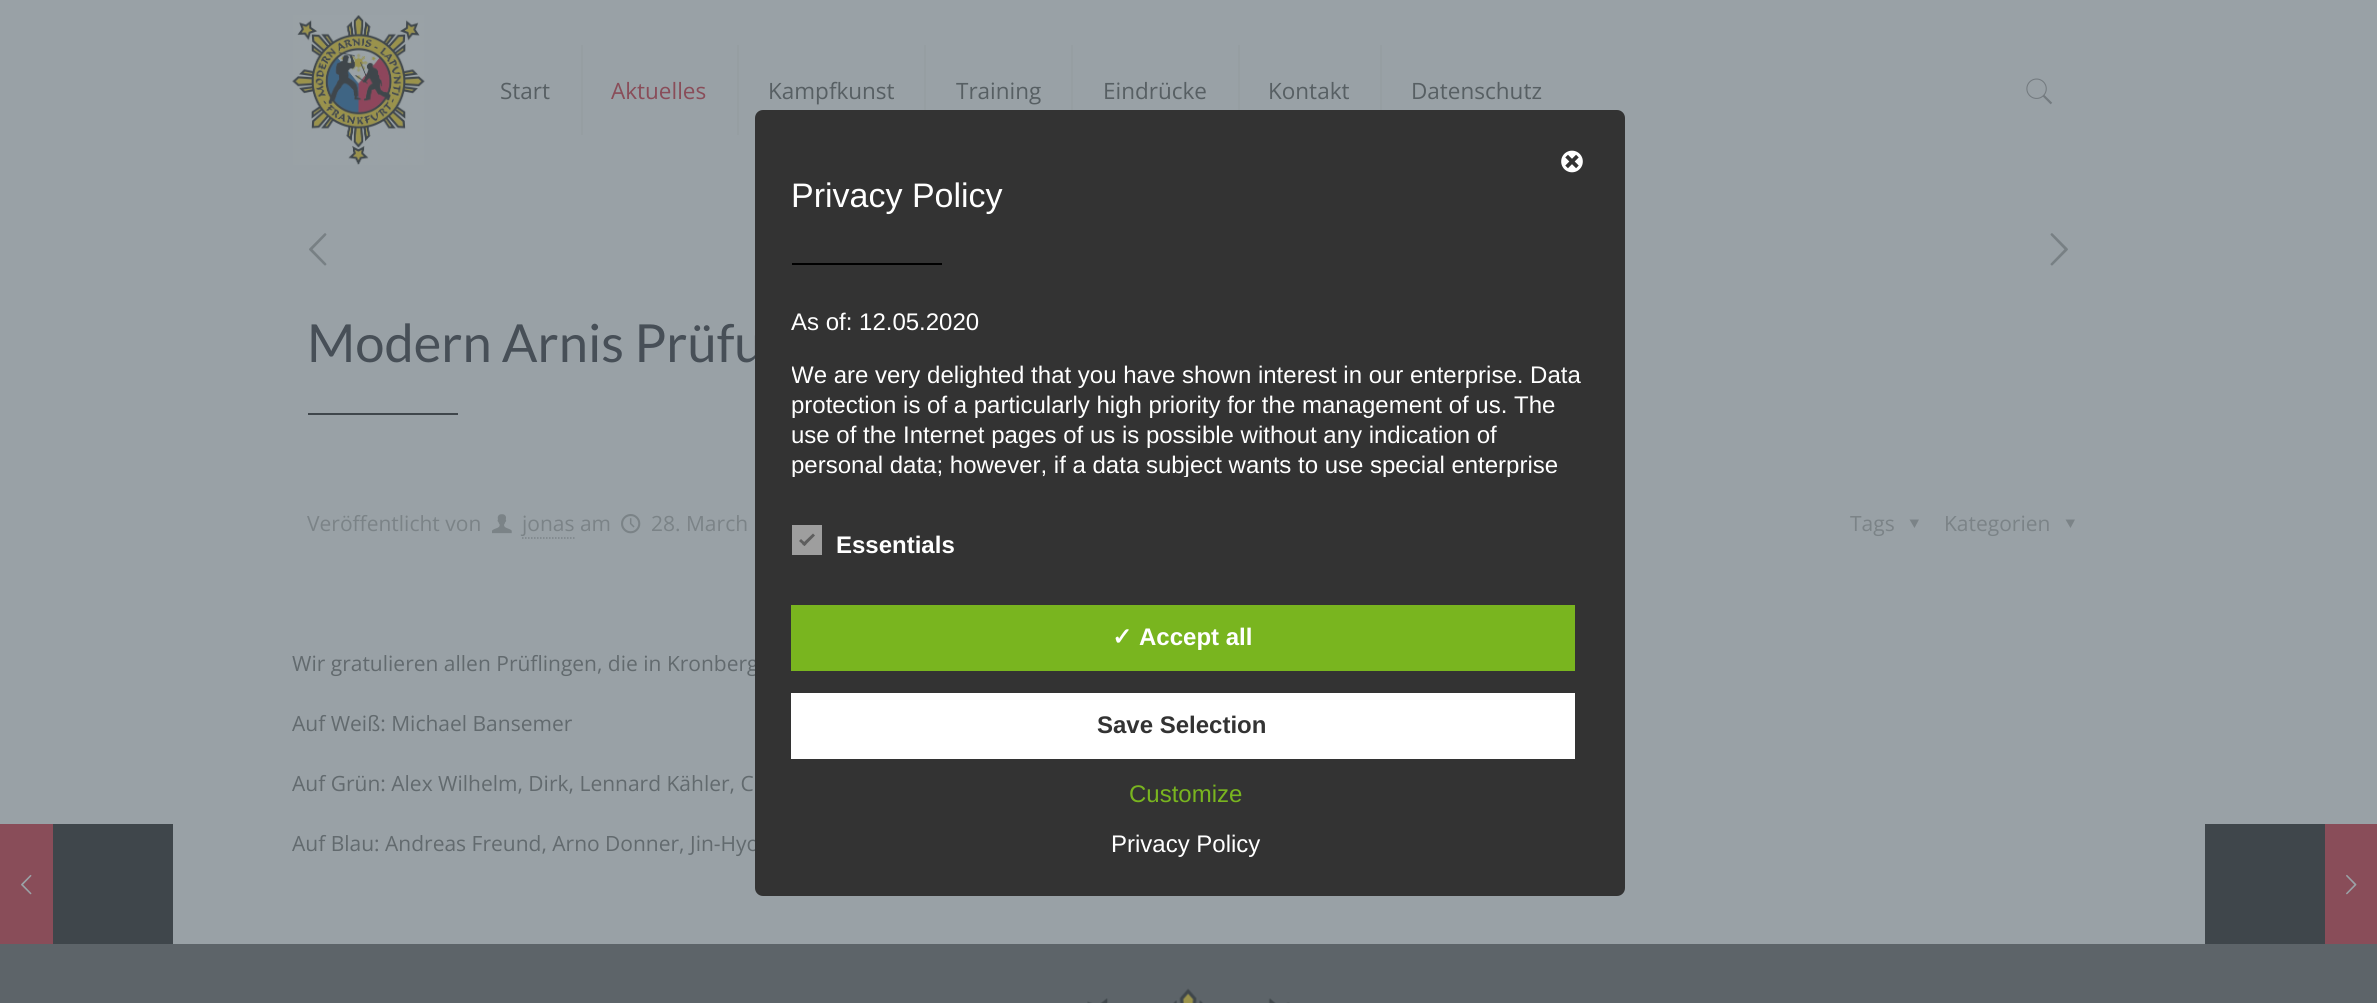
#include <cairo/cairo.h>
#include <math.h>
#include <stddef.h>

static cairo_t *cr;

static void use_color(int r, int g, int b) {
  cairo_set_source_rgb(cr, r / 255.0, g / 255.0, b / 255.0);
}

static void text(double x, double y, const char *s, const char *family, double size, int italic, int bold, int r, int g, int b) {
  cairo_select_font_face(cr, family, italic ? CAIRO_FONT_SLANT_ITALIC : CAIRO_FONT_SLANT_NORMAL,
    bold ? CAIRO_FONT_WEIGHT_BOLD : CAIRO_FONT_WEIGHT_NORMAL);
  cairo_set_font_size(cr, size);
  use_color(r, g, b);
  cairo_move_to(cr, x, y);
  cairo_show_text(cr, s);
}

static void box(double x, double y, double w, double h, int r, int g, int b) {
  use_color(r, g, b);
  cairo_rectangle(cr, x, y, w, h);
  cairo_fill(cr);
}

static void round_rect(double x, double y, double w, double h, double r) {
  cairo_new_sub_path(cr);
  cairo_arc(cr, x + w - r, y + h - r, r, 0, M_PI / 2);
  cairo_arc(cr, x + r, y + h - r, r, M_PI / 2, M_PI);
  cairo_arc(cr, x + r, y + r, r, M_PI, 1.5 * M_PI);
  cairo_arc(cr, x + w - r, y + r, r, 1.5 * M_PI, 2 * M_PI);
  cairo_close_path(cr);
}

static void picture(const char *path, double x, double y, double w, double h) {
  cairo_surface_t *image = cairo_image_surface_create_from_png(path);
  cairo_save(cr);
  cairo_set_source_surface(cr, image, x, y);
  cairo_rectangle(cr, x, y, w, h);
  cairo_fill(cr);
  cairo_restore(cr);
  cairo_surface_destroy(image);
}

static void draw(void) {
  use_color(153, 161, 166);
  cairo_paint(cr);
  picture("img_01.png", 292, 15, 133, 150);
  box(581, 45, 2, 90, 150, 158, 162);
  box(737, 45, 2, 90, 150, 158, 162);
  box(924, 45, 2, 65, 150, 158, 162);
  box(1071, 45, 2, 65, 150, 158, 162);
  box(1238, 45, 2, 65, 150, 158, 162);
  box(1380, 45, 2, 65, 150, 158, 162);
  picture("img_02.png", 2026, 78, 27, 27);
  picture("img_03.png", 309, 233, 18, 33);
  picture("img_04.png", 2050, 233, 18, 33);
  box(308, 413, 150, 2, 63, 70, 75);
  picture("img_05.png", 492, 514, 20, 20);
  cairo_new_path(cr);
  cairo_move_to(cr, 522, 538);
  cairo_line_to(cr, 574.5, 538);
  use_color(123, 131, 135);
  cairo_set_line_width(cr, 1.5);
  cairo_set_dash(cr, (double[]){1.5, 1.5}, 2, 0);
  cairo_stroke(cr);
  picture("img_06.png", 621, 514, 20, 20);
  cairo_new_path(cr);
  cairo_move_to(cr, 1919, 519.5);
  cairo_line_to(cr, 1914.5, 528);
  cairo_line_to(cr, 1909.5, 519.5);
  cairo_close_path(cr);
  cairo_fill(cr);
  cairo_new_path(cr);
  cairo_move_to(cr, 2075, 519.5);
  cairo_line_to(cr, 2070.5, 528);
  cairo_line_to(cr, 2065.5, 519.5);
  cairo_close_path(cr);
  cairo_fill(cr);
  box(0, 944, 2377, 59, 93, 100, 105);
  picture("img_07.png", 1087, 988, 203, 15);
  box(0, 824, 53, 120, 137, 77, 89);
  picture("img_09.png", 21, 874, 11, 21);
  box(53, 824, 120, 120, 63, 70, 75);
  box(2205, 824, 120, 120, 63, 70, 75);
  box(2325, 824, 52, 120, 137, 77, 89);
  picture("img_10.png", 2346, 874, 11, 21);
  text(500, 99, "Start", "Open Sans", 22.5, 0, 0, 87, 95, 99);
  text(611, 99, "Aktuelles", "Open Sans", 22.5, 0, 0, 137, 77, 89);
  text(768, 99, "Kampfkunst", "Open Sans", 22.5, 0, 0, 87, 95, 99);
  text(956, 99, "Training", "Open Sans", 22.5, 0, 0, 87, 95, 99);
  text(1103, 99, "Eindrücke", "Open Sans", 22.5, 0, 0, 87, 95, 99);
  text(1268, 99, "Kontakt", "Open Sans", 22.5, 0, 0, 87, 95, 99);
  text(1411, 99, "Datenschutz", "Open Sans", 22.5, 0, 0, 87, 95, 99);
  text(307, 362, "Modern Arnis Prüfu", "Lato", 52.5, 0, 0, 71, 79, 87);
  text(307, 531, "Veröffentlicht von", "Open Sans", 21, 0, 0, 123, 131, 135);
  text(522, 531, "jonas am", "Open Sans", 21, 0, 0, 123, 131, 135);
  text(651, 531, "28. March", "Open Sans", 21, 0, 0, 123, 131, 135);
  text(1850, 531, "Tags", "Open Sans", 21, 0, 0, 123, 131, 135);
  text(1944, 531, "Kategorien", "Open Sans", 21, 0, 0, 123, 131, 135);
  text(292, 671, "Wir gratulieren allen Prüflingen, die in Kronberg", "Open Sans", 21, 0, 0, 98, 106, 110);
  text(292, 731, "Auf Weiß: Michael Bansemer", "Open Sans", 21, 0, 0, 98, 106, 110);
  text(292, 791, "Auf Grün: Alex Wilhelm, Dirk, Lennard Kähler, C", "Open Sans", 21, 0, 0, 98, 106, 110);
  text(292, 851, "Auf Blau: Andreas Freund, Arno Donner, Jin-Hyo", "Open Sans", 21, 0, 0, 98, 106, 110);
  use_color(51, 51, 51);
  round_rect(755, 110, 870, 786, 8);
  cairo_fill(cr);
  picture("img_08.png", 1561, 150, 22, 23);
  text(791, 207, "Privacy Policy", "Liberation Sans", 34, 0, 0, 255, 255, 255);
  box(792, 263, 150, 2, 0, 0, 0);
  text(791, 330, "As of: 12.05.2020", "Liberation Sans", 24, 0, 0, 255, 255, 255);
  cairo_save(cr);
  cairo_rectangle(cr, 792, 177, 810, 300);
  cairo_clip(cr);
  text(791, 383, "We are very delighted that you have shown interest in our enterprise. Data", "Liberation Sans", 24, 0, 0, 255, 255, 255);
  cairo_restore(cr);
  text(791, 413, "protection is of a particularly high priority for the management of us. The", "Liberation Sans", 24, 0, 0, 255, 255, 255);
  text(791, 443, "use of the Internet pages of us is possible without any indication of", "Liberation Sans", 24, 0, 0, 255, 255, 255);
  cairo_save(cr);
  cairo_rectangle(cr, 792, 177, 810, 300);
  cairo_clip(cr);
  text(791, 473, "personal data; however, if a data subject wants to use special enterprise", "Liberation Sans", 24, 0, 0, 255, 255, 255);
  cairo_restore(cr);
  box(792, 525, 30, 30, 158, 158, 158);
  use_color(94, 94, 94);
  cairo_new_path(cr);
  cairo_move_to(cr, 813, 533.5);
  cairo_line_to(cr, 815, 535.5);
  cairo_line_to(cr, 804.5, 546);
  cairo_line_to(cr, 802, 544);
  cairo_close_path(cr);
  cairo_fill(cr);
  cairo_new_path(cr);
  cairo_move_to(cr, 801, 539);
  cairo_line_to(cr, 806.5, 544);
  cairo_line_to(cr, 804.5, 546);
  cairo_line_to(cr, 799, 541);
  cairo_close_path(cr);
  cairo_fill(cr);
  text(836, 553, "Essentials", "Liberation Sans", 24, 0, 1, 255, 255, 255);
  box(791, 605, 784, 66, 121, 181, 31);
  text(1112, 645, "✓", "DejaVu Sans", 24, 0, 1, 255, 255, 255);
  text(1139, 645, "Accept all", "Liberation Sans", 24, 0, 1, 255, 255, 255);
  box(791, 693, 784, 66, 255, 255, 255);
  text(1097, 733, "Save Selection", "Liberation Sans", 24, 0, 1, 51, 51, 51);
  text(1129, 802, "Customize", "Liberation Sans", 24, 0, 0, 121, 181, 31);
  text(1111, 852, "Privacy Policy", "Liberation Sans", 24, 0, 0, 255, 255, 255);
}

int main(void) {
  cairo_surface_t *surface = cairo_image_surface_create(CAIRO_FORMAT_RGB24, 2377, 1003);
  cr = cairo_create(surface);
  cairo_font_options_t *options = cairo_font_options_create();
  cairo_font_options_set_hint_metrics(options, CAIRO_HINT_METRICS_OFF);
  cairo_font_options_set_hint_style(options, CAIRO_HINT_STYLE_NONE);
  cairo_set_font_options(cr, options);
  cairo_set_miter_limit(cr, 4);
  draw();
  cairo_surface_write_to_png(surface, "out.png");
  cairo_font_options_destroy(options);
  cairo_destroy(cr);
  cairo_surface_destroy(surface);
  return 0;
}
